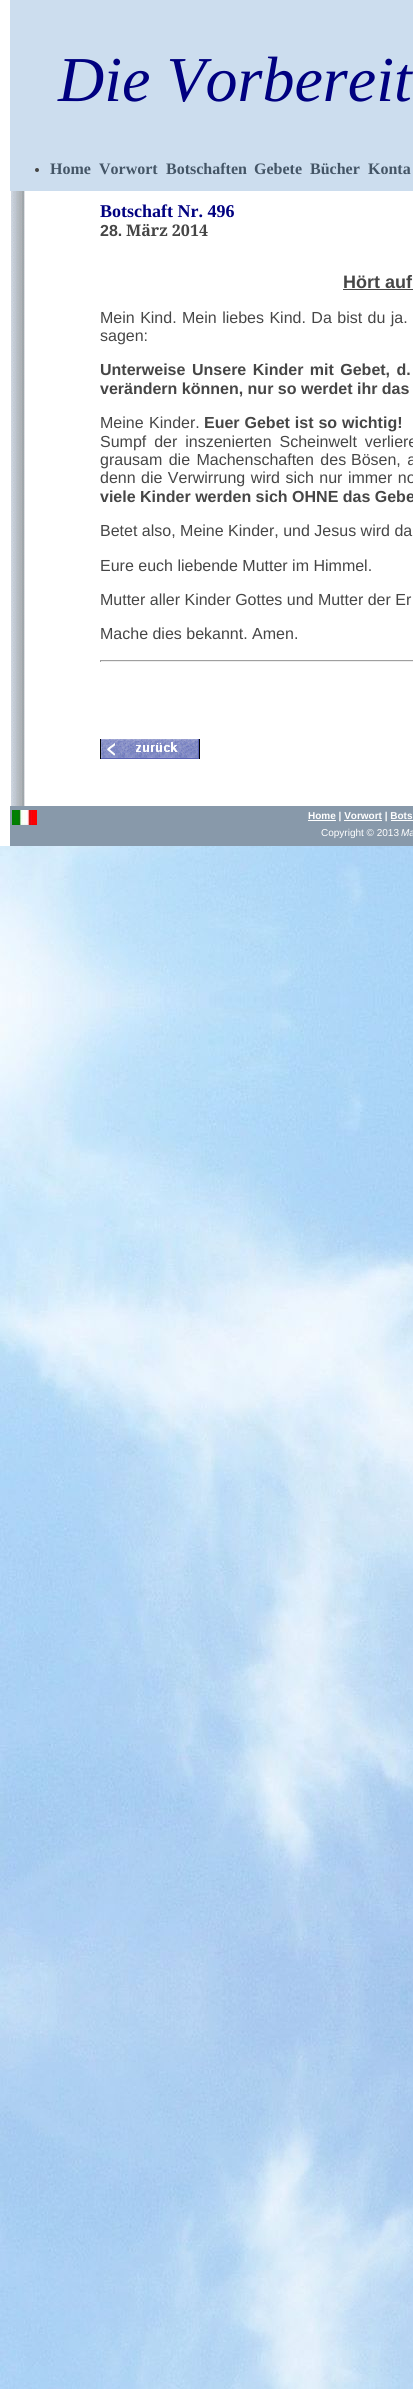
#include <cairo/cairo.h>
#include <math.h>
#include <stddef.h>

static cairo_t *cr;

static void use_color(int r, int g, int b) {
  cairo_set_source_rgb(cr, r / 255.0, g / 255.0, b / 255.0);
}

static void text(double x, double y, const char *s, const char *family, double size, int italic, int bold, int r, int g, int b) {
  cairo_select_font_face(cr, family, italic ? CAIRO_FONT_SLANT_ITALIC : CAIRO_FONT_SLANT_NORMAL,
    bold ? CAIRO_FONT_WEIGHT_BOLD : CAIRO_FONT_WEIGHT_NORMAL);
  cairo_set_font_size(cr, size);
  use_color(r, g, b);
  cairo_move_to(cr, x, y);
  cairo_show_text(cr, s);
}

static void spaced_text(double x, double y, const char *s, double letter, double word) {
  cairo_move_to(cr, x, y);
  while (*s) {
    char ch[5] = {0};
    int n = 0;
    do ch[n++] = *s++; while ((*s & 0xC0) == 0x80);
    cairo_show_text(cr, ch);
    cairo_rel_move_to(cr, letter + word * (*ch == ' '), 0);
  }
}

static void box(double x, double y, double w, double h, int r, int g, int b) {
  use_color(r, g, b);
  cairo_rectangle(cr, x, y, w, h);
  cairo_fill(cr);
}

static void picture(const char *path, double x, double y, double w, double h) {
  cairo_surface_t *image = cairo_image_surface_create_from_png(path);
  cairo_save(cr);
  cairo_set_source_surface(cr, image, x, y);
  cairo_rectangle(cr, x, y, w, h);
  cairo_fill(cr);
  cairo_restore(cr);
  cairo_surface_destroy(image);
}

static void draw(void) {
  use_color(255, 255, 255);
  cairo_paint(cr);
  picture("img_01.png", 0, 846, 413, 1543);
  picture("img_02.png", 11, 191, 14, 615);
  box(10, 0, 403, 191, 204, 221, 238);
  use_color(70, 70, 70);
  cairo_arc(cr, 37, 170, 2, 0, 2 * M_PI);
  cairo_fill(cr);
  box(343, 289, 70, 1, 70, 70, 70);
  box(100, 660, 313, 1, 159, 159, 159);
  box(100, 661, 313, 1, 238, 238, 238);
  box(100, 660, 1, 2, 159, 159, 159);
  picture("img_03.png", 100, 739, 100, 20);
  box(10, 806, 403, 40, 136, 153, 170);
  picture("img_04.png", 12, 810, 25, 15);
  box(308, 820, 28, 1, 255, 255, 255);
  box(344, 820, 38, 1, 255, 255, 255);
  box(391, 820, 22, 1, 255, 255, 255);
  text(58, 101, "Die Vorbereit", "Liberation Serif", 64, 1, 0, 0, 0, 128);
  text(50, 174, "Home", "Liberation Serif", 16, 0, 1, 68, 85, 102);
  text(99, 174, "Vorwort", "Liberation Serif", 16, 0, 1, 68, 85, 102);
  text(166, 174, "Botschaften", "Liberation Serif", 16, 0, 1, 68, 85, 102);
  text(254, 174, "Gebete", "Liberation Serif", 16, 0, 1, 68, 85, 102);
  text(310, 174, "Bücher", "Liberation Serif", 16, 0, 1, 68, 85, 102);
  text(368, 174, "Konta", "Liberation Serif", 16, 0, 1, 68, 85, 102);
  text(100, 217, "Botschaft Nr. 496", "Liberation Serif", 18, 0, 1, 0, 0, 128);
  text(100, 236, "28.", "Liberation Sans", 16, 0, 1, 70, 70, 70);
  text(126, 236, "März 2014", "Noto Serif", 16, 0, 1, 70, 70, 70);
  text(343, 288, "Hört auf", "Liberation Sans", 18, 0, 1, 70, 70, 70);
  cairo_select_font_face(cr, "Liberation Sans", CAIRO_FONT_SLANT_NORMAL, CAIRO_FONT_WEIGHT_NORMAL);
  cairo_set_font_size(cr, 16);
  spaced_text(100, 323, "Mein Kind. Mein liebes Kind. Da bist du ja.", 0, 1);
  text(100, 341, "sagen:", "Liberation Sans", 16, 0, 0, 70, 70, 70);
  text(100, 375, "Unterweise", "Liberation Sans", 16, 0, 1, 70, 70, 70);
  spaced_text(192, 375, "Unsere Kinder mit Gebet, d.", 0, 2);
  text(100, 394, "verändern können, nur so werdet ihr das", "Liberation Sans", 16, 0, 1, 70, 70, 70);
  cairo_select_font_face(cr, "Liberation Sans", CAIRO_FONT_SLANT_NORMAL, CAIRO_FONT_WEIGHT_NORMAL);
  spaced_text(100, 428, "Meine Kinder.", 0, 1);
  cairo_select_font_face(cr, "Liberation Sans", CAIRO_FONT_SLANT_NORMAL, CAIRO_FONT_WEIGHT_BOLD);
  spaced_text(204, 428, "Euer Gebet ist so wichtig!", 0, 0.5);
  cairo_select_font_face(cr, "Liberation Sans", CAIRO_FONT_SLANT_NORMAL, CAIRO_FONT_WEIGHT_NORMAL);
  spaced_text(100, 447, "Sumpf der inszenierten Scheinwelt verliere", 0, 3.5);
  spaced_text(100, 465, "grausam die Machenschaften des", 0, 2);
  spaced_text(351, 465, "Bösen, a", 0, 2);
  spaced_text(100, 483, "denn die Verwirrung wird sich nur immer no", 0, 1);
  text(100, 502, "viele Kinder werden sich OHNE das Gebe", "Liberation Sans", 16, 0, 1, 70, 70, 70);
  text(100, 536, "Betet also, Meine Kinder, und Jesus wird da", "Liberation Sans", 16, 0, 0, 70, 70, 70);
  text(100, 571, "Eure euch liebende Mutter im Himmel.", "Liberation Sans", 16, 0, 0, 70, 70, 70);
  text(100, 605, "Mutter aller Kinder Gottes und Mutter der Er", "Liberation Sans", 16, 0, 0, 70, 70, 70);
  text(100, 639, "Mache dies bekannt. Amen.", "Liberation Sans", 16, 0, 0, 70, 70, 70);
  text(308, 819, "Home | Vorwort | Bots", "Liberation Sans", 10, 0, 1, 255, 255, 255);
  text(321, 836, "Copyright © 2013", "Liberation Sans", 10, 0, 0, 255, 255, 255);
  text(401, 836, "Ma", "Liberation Sans", 10, 1, 0, 255, 255, 255);
}

int main(void) {
  cairo_surface_t *surface = cairo_image_surface_create(CAIRO_FORMAT_RGB24, 413, 2389);
  cr = cairo_create(surface);
  cairo_font_options_t *options = cairo_font_options_create();
  cairo_font_options_set_hint_metrics(options, CAIRO_HINT_METRICS_OFF);
  cairo_font_options_set_hint_style(options, CAIRO_HINT_STYLE_NONE);
  cairo_set_font_options(cr, options);
  cairo_set_miter_limit(cr, 4);
  draw();
  cairo_surface_write_to_png(surface, "out.png");
  cairo_font_options_destroy(options);
  cairo_destroy(cr);
  cairo_surface_destroy(surface);
  return 0;
}
